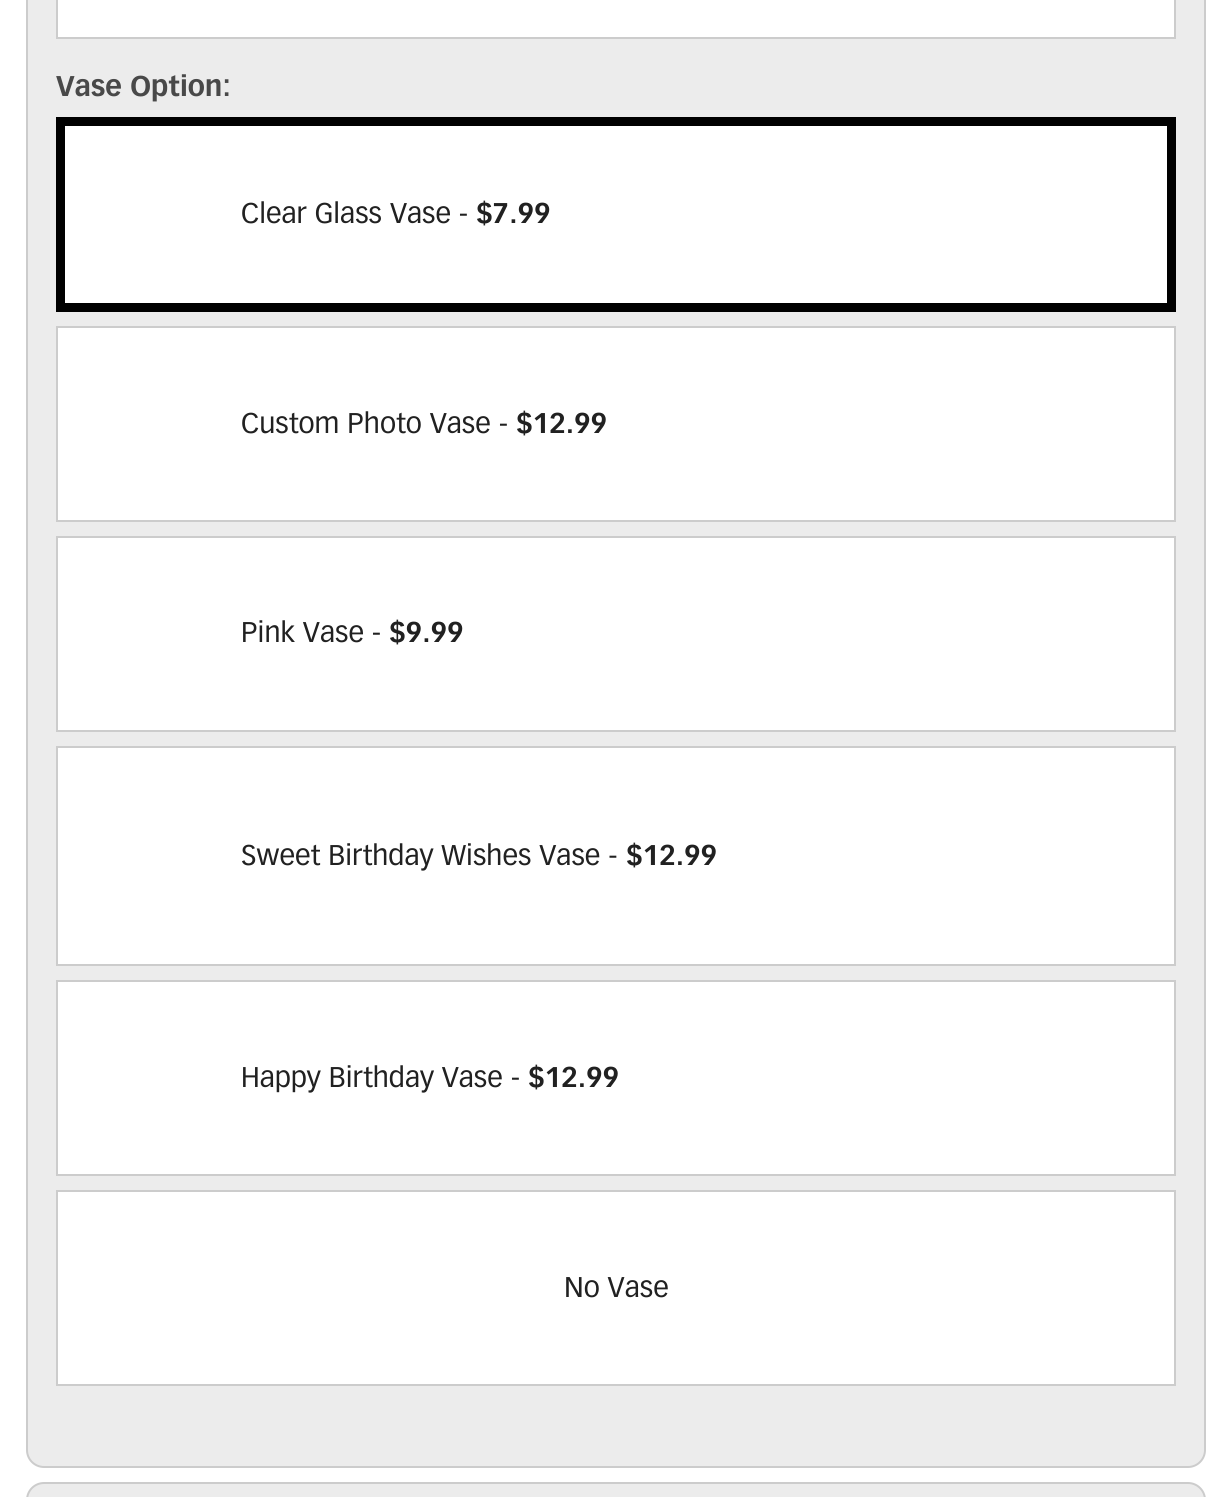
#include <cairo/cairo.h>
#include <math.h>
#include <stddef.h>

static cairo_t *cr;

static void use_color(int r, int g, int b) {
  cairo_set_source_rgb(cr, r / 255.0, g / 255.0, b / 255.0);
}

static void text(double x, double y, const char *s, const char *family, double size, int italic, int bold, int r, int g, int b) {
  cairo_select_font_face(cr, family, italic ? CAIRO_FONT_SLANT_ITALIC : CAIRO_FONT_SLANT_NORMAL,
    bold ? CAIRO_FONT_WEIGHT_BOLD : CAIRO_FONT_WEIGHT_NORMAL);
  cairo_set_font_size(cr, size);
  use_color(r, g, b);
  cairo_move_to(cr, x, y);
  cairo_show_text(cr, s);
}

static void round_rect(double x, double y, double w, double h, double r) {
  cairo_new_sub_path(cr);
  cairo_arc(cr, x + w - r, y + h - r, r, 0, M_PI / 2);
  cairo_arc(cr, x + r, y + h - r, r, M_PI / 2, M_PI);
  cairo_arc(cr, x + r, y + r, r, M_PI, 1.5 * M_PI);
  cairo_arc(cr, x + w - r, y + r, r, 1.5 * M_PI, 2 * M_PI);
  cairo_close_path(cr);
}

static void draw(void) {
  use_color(255, 255, 255);
  cairo_paint(cr);
  use_color(236, 236, 236);
  round_rect(27, -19, 1178, 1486, 17);
  cairo_fill_preserve(cr);
  use_color(204, 204, 204);
  cairo_stroke(cr);
  use_color(255, 255, 255);
  cairo_rectangle(cr, 57, -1, 1118, 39);
  cairo_fill_preserve(cr);
  use_color(204, 204, 204);
  cairo_stroke(cr);
  use_color(255, 255, 255);
  cairo_rectangle(cr, 60.5, 121.5, 1111, 186);
  cairo_fill_preserve(cr);
  use_color(0, 0, 0);
  cairo_set_line_width(cr, 9);
  cairo_stroke(cr);
  use_color(255, 255, 255);
  cairo_rectangle(cr, 57, 327, 1118, 194);
  cairo_fill_preserve(cr);
  use_color(204, 204, 204);
  cairo_set_line_width(cr, 2);
  cairo_stroke(cr);
  use_color(255, 255, 255);
  cairo_rectangle(cr, 57, 537, 1118, 194);
  cairo_fill_preserve(cr);
  use_color(204, 204, 204);
  cairo_stroke(cr);
  use_color(255, 255, 255);
  cairo_rectangle(cr, 57, 747, 1118, 218);
  cairo_fill_preserve(cr);
  use_color(204, 204, 204);
  cairo_stroke(cr);
  use_color(255, 255, 255);
  cairo_rectangle(cr, 57, 981, 1118, 194);
  cairo_fill_preserve(cr);
  use_color(204, 204, 204);
  cairo_stroke(cr);
  use_color(255, 255, 255);
  cairo_rectangle(cr, 57, 1191, 1118, 194);
  cairo_fill_preserve(cr);
  use_color(204, 204, 204);
  cairo_stroke(cr);
  use_color(236, 236, 236);
  round_rect(27, 1483, 1178, 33, 17);
  cairo_fill_preserve(cr);
  use_color(204, 204, 204);
  cairo_stroke(cr);
  text(56, 96, "Vase Option:", "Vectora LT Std", 28, 0, 1, 73, 73, 73);
  text(241, 223, "Clear Glass Vase -", "Vectora LT Std", 28, 0, 0, 33, 33, 33);
  text(476, 223, "$7.99", "Vectora LT Std", 28, 0, 1, 33, 33, 33);
  text(241, 433, "Custom Photo Vase -", "Vectora LT Std", 28, 0, 0, 33, 33, 33);
  text(516, 433, "$12.99", "Vectora LT Std", 28, 0, 1, 33, 33, 33);
  text(241, 642, "Pink Vase -", "Vectora LT Std", 28, 0, 0, 33, 33, 33);
  text(389, 642, "$9.99", "Vectora LT Std", 28, 0, 1, 33, 33, 33);
  text(241, 865, "Sweet Birthday Wishes Vase -", "Vectora LT Std", 28, 0, 0, 33, 33, 33);
  text(626, 865, "$12.99", "Vectora LT Std", 28, 0, 1, 33, 33, 33);
  text(241, 1087, "Happy Birthday Vase -", "Vectora LT Std", 28, 0, 0, 33, 33, 33);
  text(528, 1087, "$12.99", "Vectora LT Std", 28, 0, 1, 33, 33, 33);
  text(564, 1297, "No Vase", "Vectora LT Std", 28, 0, 0, 33, 33, 33);
}

int main(void) {
  cairo_surface_t *surface = cairo_image_surface_create(CAIRO_FORMAT_RGB24, 1232, 1497);
  cr = cairo_create(surface);
  cairo_font_options_t *options = cairo_font_options_create();
  cairo_font_options_set_hint_metrics(options, CAIRO_HINT_METRICS_OFF);
  cairo_font_options_set_hint_style(options, CAIRO_HINT_STYLE_NONE);
  cairo_set_font_options(cr, options);
  cairo_set_miter_limit(cr, 4);
  draw();
  cairo_surface_write_to_png(surface, "out.png");
  cairo_font_options_destroy(options);
  cairo_destroy(cr);
  cairo_surface_destroy(surface);
  return 0;
}
